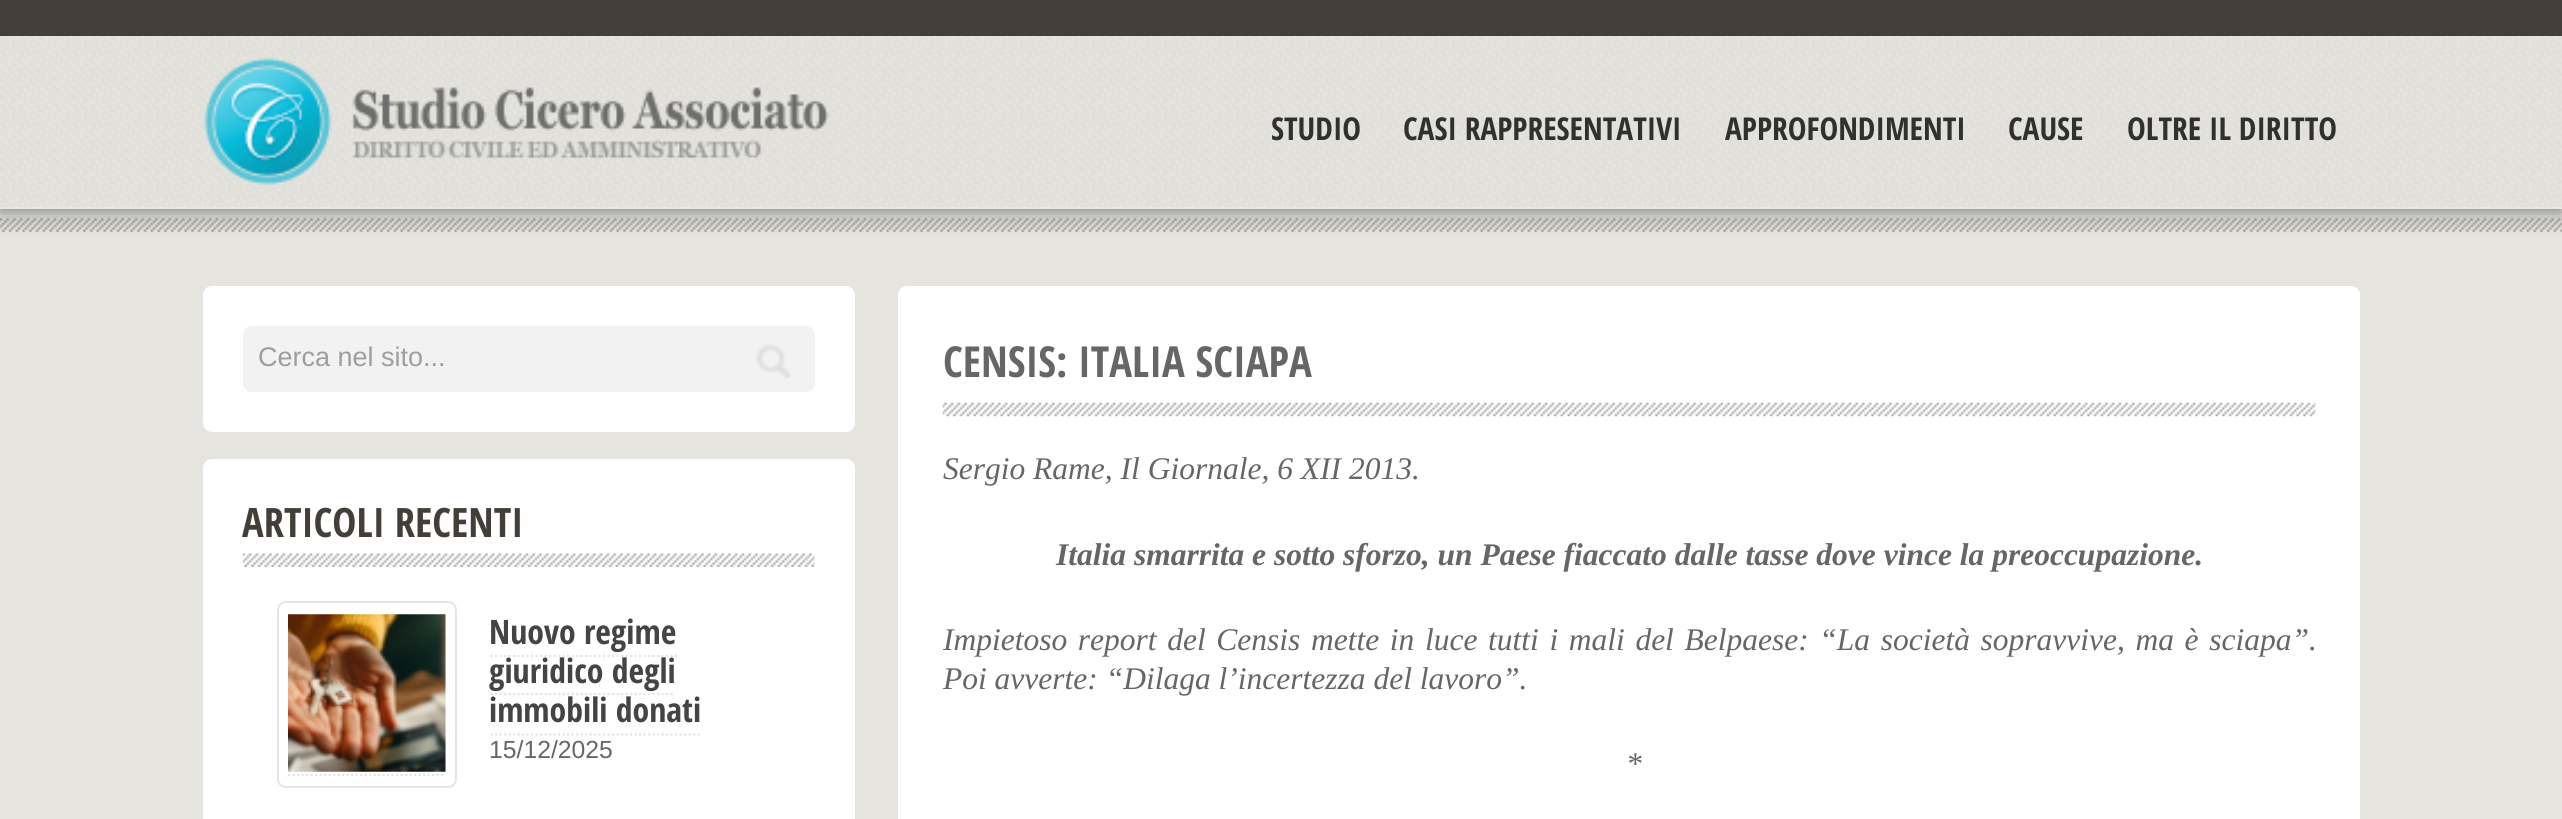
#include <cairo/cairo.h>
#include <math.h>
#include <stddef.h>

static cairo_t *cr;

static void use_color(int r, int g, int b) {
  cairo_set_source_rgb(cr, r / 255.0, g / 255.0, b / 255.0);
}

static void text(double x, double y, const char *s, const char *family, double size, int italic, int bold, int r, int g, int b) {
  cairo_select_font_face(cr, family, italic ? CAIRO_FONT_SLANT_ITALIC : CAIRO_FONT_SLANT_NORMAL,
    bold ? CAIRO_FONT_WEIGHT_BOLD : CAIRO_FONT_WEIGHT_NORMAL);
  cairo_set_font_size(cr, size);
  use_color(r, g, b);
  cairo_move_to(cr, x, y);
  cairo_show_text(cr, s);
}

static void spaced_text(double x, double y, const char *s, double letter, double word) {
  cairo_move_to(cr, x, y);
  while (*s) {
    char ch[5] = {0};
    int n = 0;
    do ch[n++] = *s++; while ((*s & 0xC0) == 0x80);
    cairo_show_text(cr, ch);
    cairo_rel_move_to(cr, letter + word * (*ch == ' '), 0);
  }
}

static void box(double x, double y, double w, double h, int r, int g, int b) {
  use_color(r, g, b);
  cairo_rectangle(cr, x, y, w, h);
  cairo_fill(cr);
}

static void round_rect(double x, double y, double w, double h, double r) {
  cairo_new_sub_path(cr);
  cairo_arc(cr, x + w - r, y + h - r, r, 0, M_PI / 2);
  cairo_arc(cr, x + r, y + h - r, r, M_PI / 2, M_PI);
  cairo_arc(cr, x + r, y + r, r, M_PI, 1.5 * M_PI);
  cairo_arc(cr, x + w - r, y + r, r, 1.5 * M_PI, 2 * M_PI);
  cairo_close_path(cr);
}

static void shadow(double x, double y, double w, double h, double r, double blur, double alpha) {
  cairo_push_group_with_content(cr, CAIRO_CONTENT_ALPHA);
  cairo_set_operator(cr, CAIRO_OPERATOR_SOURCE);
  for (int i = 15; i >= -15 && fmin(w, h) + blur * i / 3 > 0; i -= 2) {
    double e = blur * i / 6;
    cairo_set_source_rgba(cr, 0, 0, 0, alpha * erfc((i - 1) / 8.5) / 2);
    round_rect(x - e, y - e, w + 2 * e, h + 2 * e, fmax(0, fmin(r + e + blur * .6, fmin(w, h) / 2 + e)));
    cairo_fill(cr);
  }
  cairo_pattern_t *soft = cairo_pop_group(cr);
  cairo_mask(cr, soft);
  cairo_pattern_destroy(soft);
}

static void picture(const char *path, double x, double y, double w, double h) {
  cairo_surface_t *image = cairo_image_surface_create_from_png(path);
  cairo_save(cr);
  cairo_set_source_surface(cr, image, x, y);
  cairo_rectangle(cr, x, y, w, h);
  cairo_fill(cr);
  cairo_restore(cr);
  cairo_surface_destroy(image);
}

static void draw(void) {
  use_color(229, 228, 223);
  cairo_paint(cr);
  picture("img_03.png", 0, 218, 2562, 14);
  use_color(102, 102, 102);
  shadow(0, 0, 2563, 209, 0, 11, 1);
  box(0, 207, 2562, 2, 230, 230, 230);
  picture("img_01.png", 0, 36, 2562, 171);
  box(0, 0, 2562, 36, 67, 63, 56);
  picture("img_02.png", 204, 58, 625, 127);
  use_color(255, 255, 255);
  round_rect(203, 286, 652, 146, 9);
  cairo_fill(cr);
  use_color(242, 242, 242);
  round_rect(243, 326, 572, 66, 9);
  cairo_fill(cr);
  picture("img_04.png", 756, 344, 35, 35);
  use_color(255, 255, 255);
  round_rect(203, 459, 652, 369, 9);
  cairo_fill(cr);
  picture("img_05.png", 243, 553, 572, 14);
  round_rect(278, 602, 178, 185, 8);
  use_color(229, 229, 229);
  cairo_stroke(cr);
  cairo_new_path(cr);
  cairo_move_to(cr, 288, 775);
  cairo_line_to(cr, 445.5, 775);
  cairo_set_line_width(cr, 2.2);
  cairo_set_dash(cr, (double[]){2.25, 2.25}, 2, 0);
  cairo_stroke(cr);
  picture("img_06.png", 288, 614, 158, 158);
  cairo_new_path(cr);
  cairo_move_to(cr, 490.5, 656);
  cairo_line_to(cr, 677, 656);
  cairo_stroke(cr);
  cairo_new_path(cr);
  cairo_move_to(cr, 490.5, 694);
  cairo_line_to(cr, 675, 694);
  cairo_stroke(cr);
  cairo_new_path(cr);
  cairo_move_to(cr, 490.5, 734.5);
  cairo_line_to(cr, 702, 734.5);
  cairo_stroke(cr);
  use_color(255, 255, 255);
  round_rect(898, 286, 1462, 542, 9);
  cairo_fill(cr);
  picture("img_07.png", 942, 402, 1374, 15);
  text(1271, 140, "STUDIO", "Open Sans Condensed", 31.5, 0, 1, 48, 48, 48);
  text(1403, 140, "CASI RAPPRESENTATIVI", "Open Sans Condensed", 31.5, 0, 1, 48, 48, 48);
  text(1725, 140, "APPROFONDIMENTI", "Open Sans Condensed", 31.5, 0, 1, 48, 48, 48);
  text(2008, 140, "CAUSE", "Open Sans Condensed", 31.5, 0, 1, 48, 48, 48);
  text(2127, 140, "OLTRE IL DIRITTO", "Open Sans Condensed", 31.5, 0, 1, 48, 48, 48);
  text(258, 366, "Cerca nel sito...", "Liberation Sans", 27, 0, 0, 158, 158, 158);
  text(242, 537, "ARTICOLI RECENTI", "Open Sans Condensed", 40.5, 0, 1, 67, 63, 56);
  text(489, 644, "Nuovo regime", "Open Sans Condensed", 33.75, 0, 1, 68, 68, 68);
  text(489, 683, "giuridico degli", "Open Sans Condensed", 33.75, 0, 1, 68, 68, 68);
  text(489, 722, "immobili donati", "Open Sans Condensed", 33.75, 0, 1, 68, 68, 68);
  text(489, 758, "15/12/2025", "Liberation Sans", 24.75, 0, 0, 102, 102, 102);
  text(943, 377, "CENSIS: ITALIA SCIAPA", "Open Sans Condensed", 42.75, 0, 1, 102, 102, 102);
  text(943, 479, "Sergio Rame, Il Giornale, 6 XII 2013.", "Liberation Serif", 31.5, 1, 0, 102, 102, 102);
  text(1056, 565, "Italia smarrita e sotto sforzo, un Paese fiaccato dalle tasse dove vince la preoccupazione.", "Liberation Serif", 31.5, 1, 1, 102, 102, 102);
  cairo_select_font_face(cr, "Liberation Serif", CAIRO_FONT_SLANT_ITALIC, CAIRO_FONT_WEIGHT_NORMAL);
  spaced_text(943, 650, "Impietoso report del Censis mette in luce tutti i mali del Belpaese: “La società sopravvive, ma è sciapa”.", 0, 2.75);
  text(943, 689, "Poi avverte: “Dilaga l’incertezza del lavoro”.", "Liberation Serif", 31.5, 1, 0, 102, 102, 102);
  text(1626, 774, "*", "Liberation Serif", 31.5, 1, 0, 102, 102, 102);
}

int main(void) {
  cairo_surface_t *surface = cairo_image_surface_create(CAIRO_FORMAT_RGB24, 2562, 819);
  cr = cairo_create(surface);
  cairo_font_options_t *options = cairo_font_options_create();
  cairo_font_options_set_hint_metrics(options, CAIRO_HINT_METRICS_OFF);
  cairo_font_options_set_hint_style(options, CAIRO_HINT_STYLE_NONE);
  cairo_set_font_options(cr, options);
  cairo_set_miter_limit(cr, 4);
  draw();
  cairo_surface_write_to_png(surface, "out.png");
  cairo_font_options_destroy(options);
  cairo_destroy(cr);
  cairo_surface_destroy(surface);
  return 0;
}
